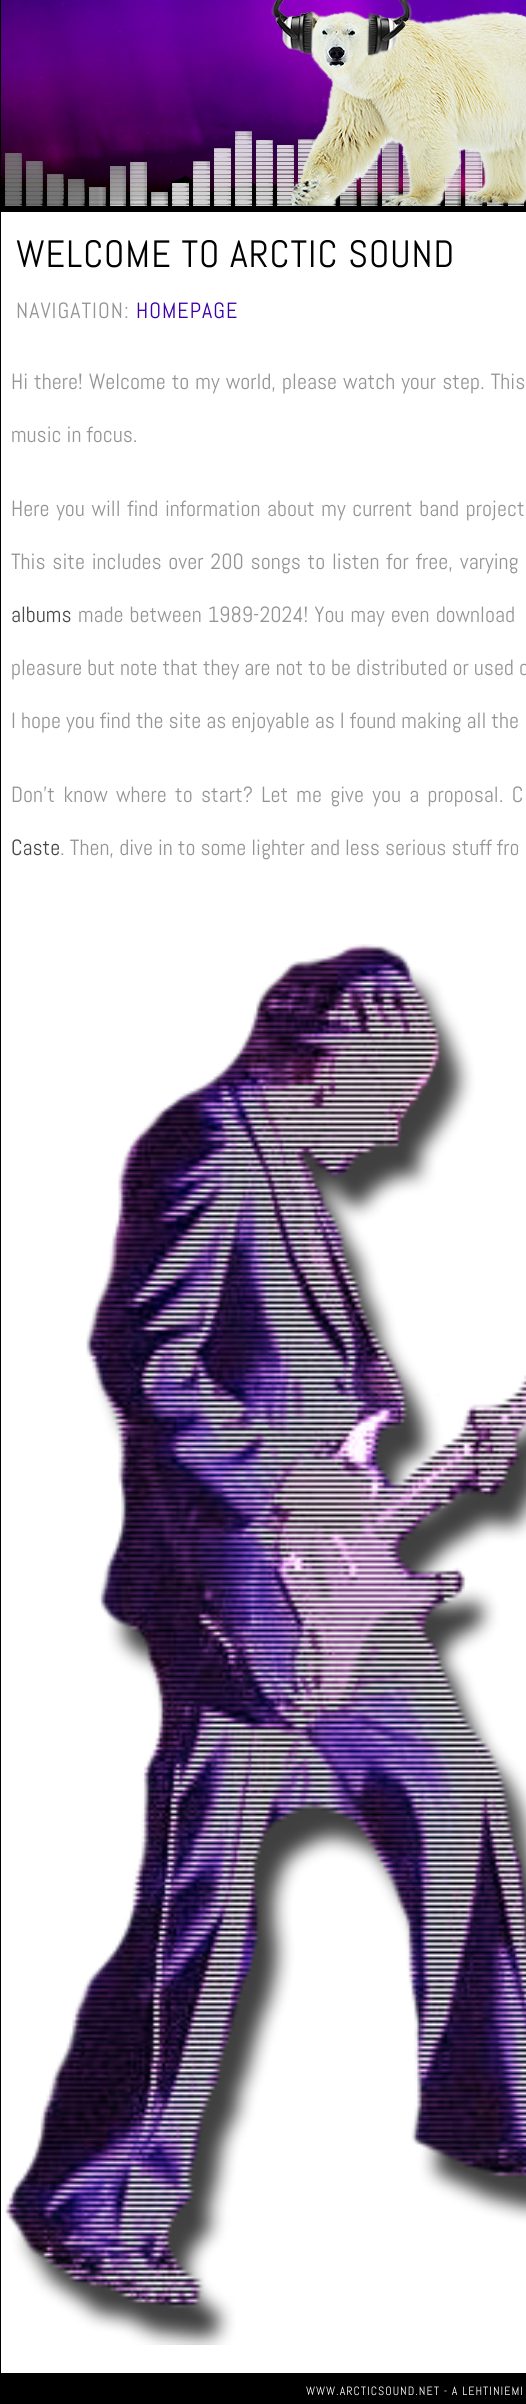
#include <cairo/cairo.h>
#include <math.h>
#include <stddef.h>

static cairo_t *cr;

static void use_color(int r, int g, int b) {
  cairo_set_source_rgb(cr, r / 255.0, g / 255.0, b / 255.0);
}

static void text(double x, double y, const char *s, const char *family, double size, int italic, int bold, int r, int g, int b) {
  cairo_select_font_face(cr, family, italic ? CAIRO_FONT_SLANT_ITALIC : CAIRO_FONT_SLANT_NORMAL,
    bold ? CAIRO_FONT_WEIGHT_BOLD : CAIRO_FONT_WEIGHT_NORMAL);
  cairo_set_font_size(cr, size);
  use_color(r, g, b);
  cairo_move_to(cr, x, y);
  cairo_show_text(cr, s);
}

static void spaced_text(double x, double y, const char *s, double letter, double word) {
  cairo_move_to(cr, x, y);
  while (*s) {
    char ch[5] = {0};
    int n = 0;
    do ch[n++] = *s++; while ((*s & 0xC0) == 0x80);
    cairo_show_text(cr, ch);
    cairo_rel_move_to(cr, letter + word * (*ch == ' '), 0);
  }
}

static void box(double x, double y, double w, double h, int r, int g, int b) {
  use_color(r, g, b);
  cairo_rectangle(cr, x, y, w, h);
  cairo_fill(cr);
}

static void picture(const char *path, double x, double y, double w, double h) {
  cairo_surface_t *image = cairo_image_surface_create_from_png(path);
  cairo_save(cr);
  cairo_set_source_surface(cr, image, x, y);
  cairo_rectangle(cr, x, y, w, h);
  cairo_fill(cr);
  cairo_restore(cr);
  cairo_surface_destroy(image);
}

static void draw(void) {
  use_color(255, 255, 255);
  cairo_paint(cr);
  cairo_rectangle(cr, 0.5, -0.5, 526, 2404);
  use_color(0, 0, 0);
  cairo_set_line_width(cr, 1);
  cairo_stroke(cr);
  picture("img_01.png", 1, 0, 525, 212);
  picture("img_02.png", 5, 944, 521, 1401);
  box(1, 2373, 525, 30, 0, 0, 0);
  cairo_select_font_face(cr, "Abel", CAIRO_FONT_SLANT_NORMAL, CAIRO_FONT_WEIGHT_NORMAL);
  cairo_set_font_size(cr, 38);
  spaced_text(16, 267, "WELCOME TO ARCTIC SOUND", 1, 0);
  cairo_set_font_size(cr, 22);
  use_color(150, 148, 147);
  spaced_text(16, 318, "NAVIGATION:", 1, 0);
  use_color(59, 0, 167);
  spaced_text(136, 318, "HOMEPAGE", 1, 0);
  use_color(150, 148, 147);
  spaced_text(11, 389, "Hi there! Welcome to my world, please watch your step. This", 0, 1);
  text(11, 442, "music in focus.", "Abel", 22, 0, 0, 150, 148, 147);
  spaced_text(11, 516, "Here you will find information about my current band project", 0, 1.6);
  spaced_text(11, 569, "This site includes over 200 songs to listen for free, varying", 0, 1.75);
  text(11, 622, "albums", "Abel", 22, 0, 0, 71, 71, 71);
  use_color(150, 148, 147);
  spaced_text(78, 622, "made between 1989-2024! You may even download", 0, 1);
  text(11, 675, "pleasure but note that they are not to be distributed or used c", "Abel", 22, 0, 0, 150, 148, 147);
  text(11, 728, "I hope you find the site as enjoyable as I found making all the", "Abel", 22, 0, 0, 150, 148, 147);
  spaced_text(11, 802, "Don't know where to start? Let me give you a proposal. C", 0, 3.25);
  text(11, 855, "Caste", "Abel", 22, 0, 0, 71, 71, 71);
  text(60, 855, ". Then, dive in to some lighter and less serious stuff fro", "Abel", 22, 0, 0, 150, 148, 147);
  cairo_set_font_size(cr, 12);
  use_color(255, 255, 255);
  spaced_text(306, 2395, "WWW.ARCTICSOUND.NET - A LEHTINIEMI", 1, 0);
}

int main(void) {
  cairo_surface_t *surface = cairo_image_surface_create(CAIRO_FORMAT_RGB24, 526, 2404);
  cr = cairo_create(surface);
  cairo_font_options_t *options = cairo_font_options_create();
  cairo_font_options_set_hint_metrics(options, CAIRO_HINT_METRICS_OFF);
  cairo_font_options_set_hint_style(options, CAIRO_HINT_STYLE_NONE);
  cairo_set_font_options(cr, options);
  cairo_set_miter_limit(cr, 4);
  draw();
  cairo_surface_write_to_png(surface, "out.png");
  cairo_font_options_destroy(options);
  cairo_destroy(cr);
  cairo_surface_destroy(surface);
  return 0;
}
